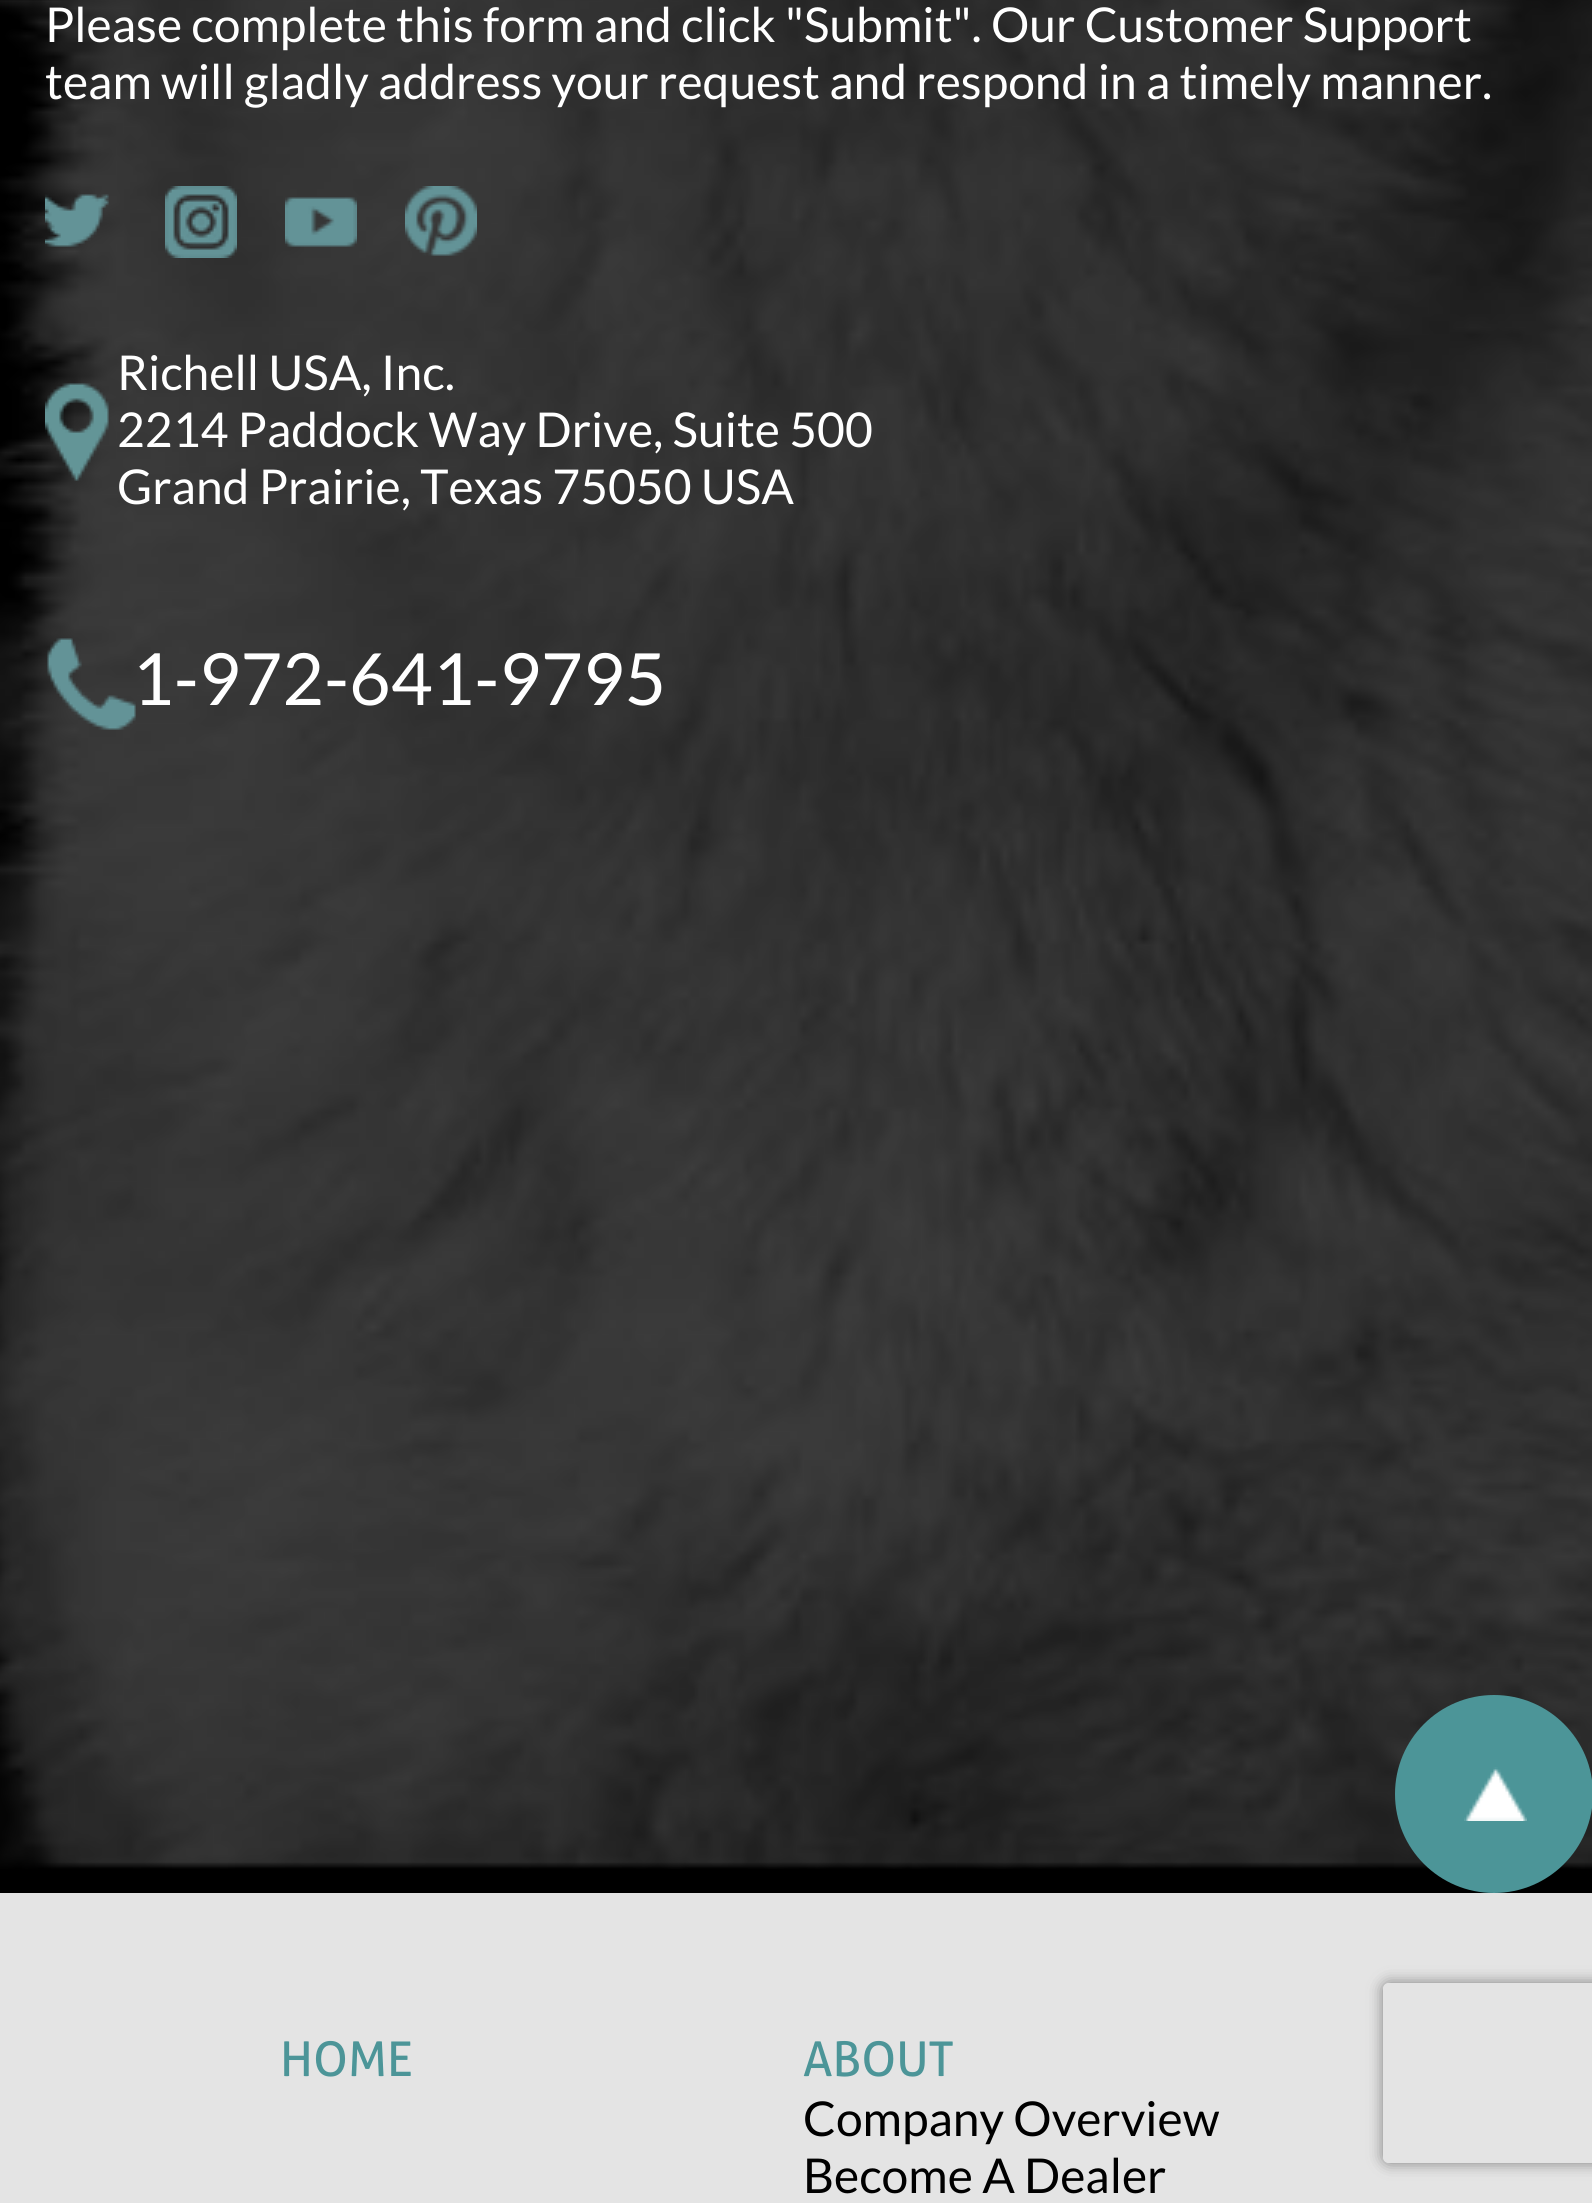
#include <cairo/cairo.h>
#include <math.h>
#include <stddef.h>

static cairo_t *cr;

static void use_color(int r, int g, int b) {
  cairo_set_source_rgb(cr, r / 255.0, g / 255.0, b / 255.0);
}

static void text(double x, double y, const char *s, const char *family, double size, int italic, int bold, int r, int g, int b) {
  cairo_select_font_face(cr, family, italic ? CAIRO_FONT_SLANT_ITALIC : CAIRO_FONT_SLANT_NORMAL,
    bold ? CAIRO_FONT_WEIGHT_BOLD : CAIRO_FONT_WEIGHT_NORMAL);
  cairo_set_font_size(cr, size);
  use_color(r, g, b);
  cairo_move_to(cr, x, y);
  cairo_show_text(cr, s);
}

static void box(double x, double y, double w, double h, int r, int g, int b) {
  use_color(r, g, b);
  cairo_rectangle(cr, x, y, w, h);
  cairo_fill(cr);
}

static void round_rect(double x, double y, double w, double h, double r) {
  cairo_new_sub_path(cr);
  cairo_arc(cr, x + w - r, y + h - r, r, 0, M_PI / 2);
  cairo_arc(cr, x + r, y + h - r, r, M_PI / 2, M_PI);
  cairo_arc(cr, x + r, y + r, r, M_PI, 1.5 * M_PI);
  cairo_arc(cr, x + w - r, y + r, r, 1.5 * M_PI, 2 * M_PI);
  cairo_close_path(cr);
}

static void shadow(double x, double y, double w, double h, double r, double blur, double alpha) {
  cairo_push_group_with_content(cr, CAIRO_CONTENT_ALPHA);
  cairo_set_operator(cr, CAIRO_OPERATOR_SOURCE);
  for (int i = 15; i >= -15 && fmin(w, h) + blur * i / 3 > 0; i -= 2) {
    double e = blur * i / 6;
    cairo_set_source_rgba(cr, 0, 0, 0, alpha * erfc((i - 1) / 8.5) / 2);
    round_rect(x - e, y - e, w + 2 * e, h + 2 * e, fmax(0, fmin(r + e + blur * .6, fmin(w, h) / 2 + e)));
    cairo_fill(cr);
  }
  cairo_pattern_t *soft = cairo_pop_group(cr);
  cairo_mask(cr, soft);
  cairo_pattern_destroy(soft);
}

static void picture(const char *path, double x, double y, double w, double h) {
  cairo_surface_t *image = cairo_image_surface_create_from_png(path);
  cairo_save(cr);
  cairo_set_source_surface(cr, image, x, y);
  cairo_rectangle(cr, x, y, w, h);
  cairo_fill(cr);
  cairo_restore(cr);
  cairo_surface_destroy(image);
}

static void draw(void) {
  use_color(228, 228, 228);
  cairo_paint(cr);
  box(0, 1869, 1592, 24, 0, 0, 0);
  picture("img_01.png", 0, 0, 1592, 1869);
  picture("img_02.png", 45, 194, 64, 53);
  picture("img_03.png", 165, 186, 72, 72);
  picture("img_04.png", 285, 197, 72, 50);
  picture("img_05.png", 405, 186, 72, 70);
  picture("img_06.png", 45, 383, 64, 98);
  picture("img_07.png", 47, 638, 89, 92);
  use_color(76, 149, 152);
  cairo_arc(cr, 1494, 1794, 99, 0, 2 * M_PI);
  cairo_fill(cr);
  picture("img_08.png", 1464, 1767, 63, 54);
  cairo_save(cr);
  cairo_set_fill_rule(cr, CAIRO_FILL_RULE_EVEN_ODD);
  cairo_new_path(cr);
  cairo_move_to(cr, 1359, 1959);
  cairo_line_to(cr, 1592, 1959);
  cairo_line_to(cr, 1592, 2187);
  cairo_line_to(cr, 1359, 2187);
  cairo_close_path(cr);
  cairo_move_to(cr, 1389, 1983);
  cairo_line_to(cr, 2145, 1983);
  cairo_curve_to(cr, 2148.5, 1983, 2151, 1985.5, 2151, 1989);
  cairo_line_to(cr, 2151, 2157);
  cairo_curve_to(cr, 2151, 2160.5, 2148.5, 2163, 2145, 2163);
  cairo_line_to(cr, 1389, 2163);
  cairo_curve_to(cr, 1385.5, 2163, 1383, 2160.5, 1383, 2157);
  cairo_line_to(cr, 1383, 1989);
  cairo_curve_to(cr, 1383, 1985.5, 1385.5, 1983, 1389, 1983);
  cairo_close_path(cr);
  cairo_clip(cr);
  use_color(128, 128, 128);
  shadow(1383, 1983, 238, 180, 6, 7.5, 1);
  cairo_restore(cr);
  text(45, 42, "Please complete this form and click \"Submit\". Our Customer Support", "Lato", 48, 0, 0, 255, 255, 255);
  text(45, 99, "team will gladly address your request and respond in a timely manner.", "Lato", 48, 0, 0, 255, 255, 255);
  text(117, 390, "Richell USA, Inc.", "Lato", 48, 0, 0, 255, 255, 255);
  text(117, 447, "2214 Paddock Way Drive, Suite 500", "Lato", 48, 0, 0, 255, 255, 255);
  text(117, 504, "Grand Prairie, Texas 75050 USA", "Lato", 48, 0, 0, 255, 255, 255);
  text(132, 705, "1-972-641-9795", "Lato", 72, 0, 0, 255, 255, 255);
  text(280, 2076, "HOME", "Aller", 48, 0, 0, 76, 149, 152);
  text(803, 2076, "ABOUT", "Aller", 48, 0, 0, 76, 149, 152);
  text(803, 2136, "Company Overview", "Lato", 48, 0, 0, 0, 0, 0);
  text(803, 2193, "Become A Dealer", "Lato", 48, 0, 0, 0, 0, 0);
}

int main(void) {
  cairo_surface_t *surface = cairo_image_surface_create(CAIRO_FORMAT_RGB24, 1592, 2203);
  cr = cairo_create(surface);
  cairo_font_options_t *options = cairo_font_options_create();
  cairo_font_options_set_hint_metrics(options, CAIRO_HINT_METRICS_OFF);
  cairo_font_options_set_hint_style(options, CAIRO_HINT_STYLE_NONE);
  cairo_set_font_options(cr, options);
  cairo_set_miter_limit(cr, 4);
  draw();
  cairo_surface_write_to_png(surface, "out.png");
  cairo_font_options_destroy(options);
  cairo_destroy(cr);
  cairo_surface_destroy(surface);
  return 0;
}
